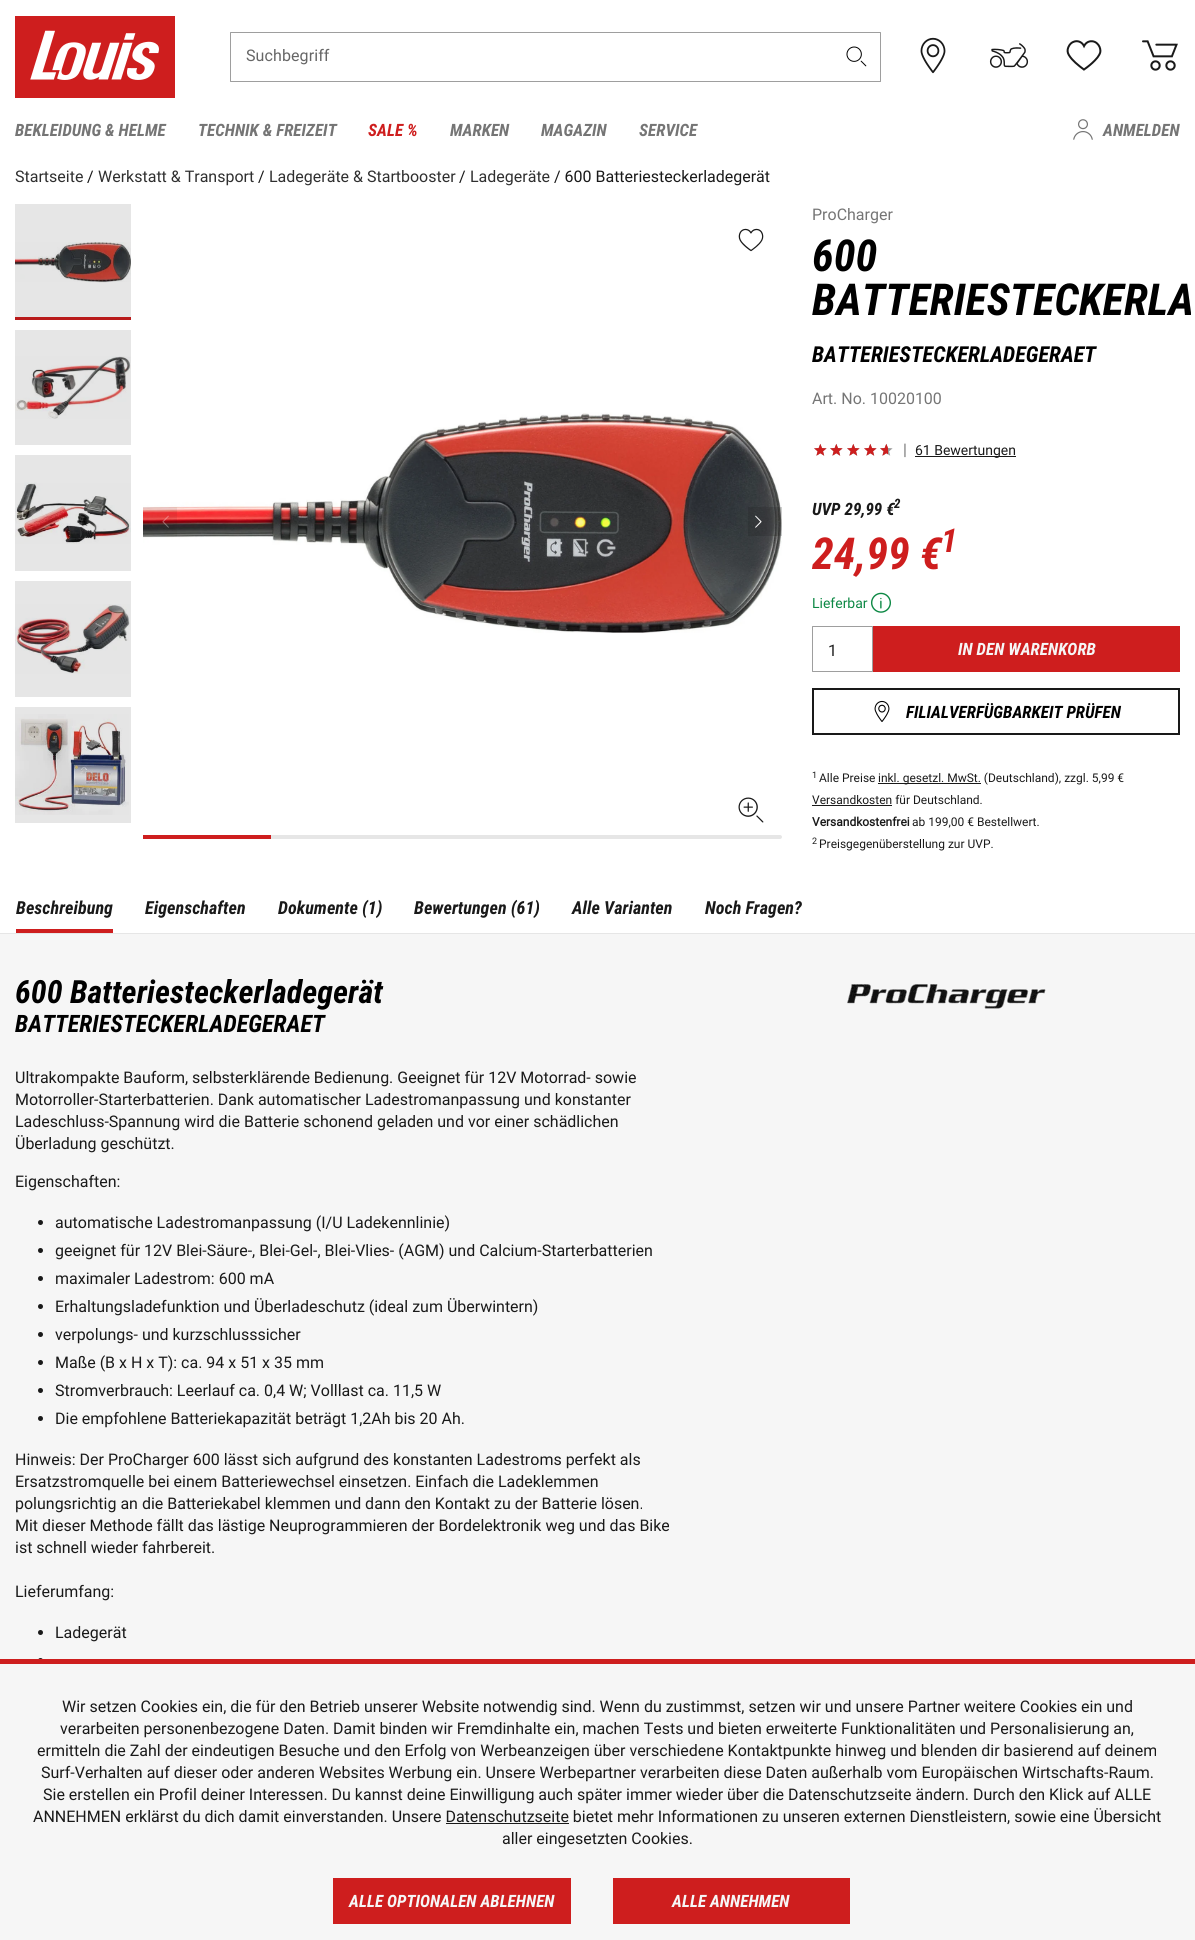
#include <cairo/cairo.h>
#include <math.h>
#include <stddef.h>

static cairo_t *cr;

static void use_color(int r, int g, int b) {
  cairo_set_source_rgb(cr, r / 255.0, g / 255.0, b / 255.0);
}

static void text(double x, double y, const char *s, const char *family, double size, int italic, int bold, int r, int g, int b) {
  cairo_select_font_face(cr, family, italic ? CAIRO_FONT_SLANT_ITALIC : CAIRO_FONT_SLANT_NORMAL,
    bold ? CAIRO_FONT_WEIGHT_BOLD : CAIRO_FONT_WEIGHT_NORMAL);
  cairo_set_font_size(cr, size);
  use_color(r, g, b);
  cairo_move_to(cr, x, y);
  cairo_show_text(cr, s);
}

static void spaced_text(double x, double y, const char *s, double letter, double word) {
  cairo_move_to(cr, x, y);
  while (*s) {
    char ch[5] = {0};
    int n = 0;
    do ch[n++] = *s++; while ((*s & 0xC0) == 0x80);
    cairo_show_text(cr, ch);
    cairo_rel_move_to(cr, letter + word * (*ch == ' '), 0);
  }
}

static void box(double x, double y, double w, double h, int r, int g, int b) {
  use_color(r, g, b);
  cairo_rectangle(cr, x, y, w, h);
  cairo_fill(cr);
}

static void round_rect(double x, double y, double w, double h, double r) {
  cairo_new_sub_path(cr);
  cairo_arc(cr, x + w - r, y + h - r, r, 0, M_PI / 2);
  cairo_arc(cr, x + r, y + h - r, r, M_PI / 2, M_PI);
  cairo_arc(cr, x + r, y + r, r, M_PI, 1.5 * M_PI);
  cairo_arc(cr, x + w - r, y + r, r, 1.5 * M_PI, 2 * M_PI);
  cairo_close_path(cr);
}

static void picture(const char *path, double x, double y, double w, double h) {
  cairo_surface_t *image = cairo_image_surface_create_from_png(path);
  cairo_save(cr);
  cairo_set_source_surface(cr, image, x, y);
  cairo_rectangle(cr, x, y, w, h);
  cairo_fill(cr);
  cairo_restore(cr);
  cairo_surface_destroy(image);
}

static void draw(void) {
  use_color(255, 255, 255);
  cairo_paint(cr);
  box(15, 707, 116, 116, 230, 230, 230);
  box(15, 581, 116, 116, 230, 230, 230);
  box(15, 455, 116, 116, 230, 230, 230);
  box(15, 330, 116, 115, 230, 230, 230);
  box(15, 204, 116, 113, 230, 230, 230);
  picture("img_01.png", 15, 16, 160, 82);
  use_color(158, 158, 158);
  cairo_new_path(cr);
  cairo_move_to(cr, 230, 32);
  cairo_line_to(cr, 242, 32);
  cairo_line_to(cr, 242, 33);
  cairo_line_to(cr, 231, 33);
  cairo_close_path(cr);
  cairo_move_to(cr, 242, 82);
  cairo_line_to(cr, 230, 82);
  cairo_line_to(cr, 231, 81);
  cairo_line_to(cr, 242, 81);
  cairo_close_path(cr);
  cairo_fill(cr);
  cairo_set_source_rgba(cr, 0, 0, 0, 0.38);
  cairo_new_path(cr);
  cairo_move_to(cr, 230, 82);
  cairo_line_to(cr, 230, 32);
  cairo_line_to(cr, 231, 33);
  cairo_line_to(cr, 231, 81);
  cairo_close_path(cr);
  cairo_fill(cr);
  box(242, 32, 88, 1, 158, 158, 158);
  box(242, 81, 88, 1, 158, 158, 158);
  cairo_new_path(cr);
  cairo_move_to(cr, 330, 32);
  cairo_line_to(cr, 881, 32);
  cairo_line_to(cr, 880, 33);
  cairo_line_to(cr, 330, 33);
  cairo_close_path(cr);
  cairo_fill(cr);
  cairo_set_source_rgba(cr, 0, 0, 0, 0.38);
  cairo_new_path(cr);
  cairo_move_to(cr, 881, 32);
  cairo_line_to(cr, 881, 82);
  cairo_line_to(cr, 880, 81);
  cairo_line_to(cr, 880, 33);
  cairo_close_path(cr);
  cairo_fill(cr);
  cairo_new_path(cr);
  cairo_move_to(cr, 881, 82);
  cairo_line_to(cr, 330, 82);
  cairo_line_to(cr, 330, 81);
  cairo_line_to(cr, 880, 81);
  cairo_close_path(cr);
  cairo_fill(cr);
  picture("img_02.png", 846, 46, 21, 21);
  picture("img_03.png", 920, 37, 26, 37);
  picture("img_04.png", 989, 43, 40, 25);
  picture("img_05.png", 1066, 40, 36, 31);
  picture("img_06.png", 1142, 40, 36, 31);
  picture("img_07.png", 1073, 119, 20, 21);
  picture("img_08.png", 738, 228, 26, 24);
  picture("img_09.png", 15, 242, 116, 41);
  box(15, 317, 116, 3, 185, 27, 27);
  picture("img_10.png", 15, 356, 116, 63);
  picture("img_11.png", 15, 482, 116, 62);
  picture("img_12.png", 15, 604, 115, 70);
  picture("img_13.png", 15, 714, 114, 101);
  picture("img_14.png", 143, 412, 639, 221);
  use_color(230, 230, 230);
  round_rect(143, 835, 639, 4, 2);
  cairo_fill(cr);
  box(143, 835, 128, 4, 206, 30, 30);
  cairo_set_source_rgba(cr, 0.098, 0.098, 0.098, 0.07);
  cairo_rectangle(cr, 143, 507, 34, 29);
  cairo_fill(cr);
  picture("img_15.png", 162, 515, 7, 13);
  cairo_set_source_rgba(cr, 0.098, 0.098, 0.098, 0.2);
  cairo_rectangle(cr, 748, 507, 34, 29);
  cairo_fill(cr);
  picture("img_16.png", 755, 515, 7, 13);
  picture("img_17.png", 738, 797, 26, 26);
  picture("img_20.png", 814, 444, 13, 12);
  picture("img_18.png", 814, 443, 13, 13);
  picture("img_20.png", 830, 444, 13, 12);
  picture("img_18.png", 830, 443, 13, 13);
  picture("img_20.png", 847, 444, 13, 12);
  picture("img_18.png", 847, 443, 13, 13);
  picture("img_20.png", 864, 444, 13, 12);
  picture("img_18.png", 864, 443, 13, 13);
  picture("img_20.png", 880, 444, 13, 12);
  picture("img_19.png", 880, 443, 8, 13);
  box(915, 456, 101, 1, 25, 25, 25);
  picture("img_21.png", 871, 592, 20, 21);
  use_color(158, 158, 158);
  cairo_new_path(cr);
  cairo_move_to(cr, 812, 626);
  cairo_line_to(cr, 824, 626);
  cairo_line_to(cr, 824, 627);
  cairo_line_to(cr, 813, 627);
  cairo_close_path(cr);
  cairo_move_to(cr, 824, 672);
  cairo_line_to(cr, 812, 672);
  cairo_line_to(cr, 813, 671);
  cairo_line_to(cr, 824, 671);
  cairo_close_path(cr);
  cairo_fill(cr);
  cairo_set_source_rgba(cr, 0, 0, 0, 0.38);
  cairo_new_path(cr);
  cairo_move_to(cr, 812, 672);
  cairo_line_to(cr, 812, 626);
  cairo_line_to(cr, 813, 627);
  cairo_line_to(cr, 813, 671);
  cairo_close_path(cr);
  cairo_fill(cr);
  use_color(158, 158, 158);
  cairo_new_path(cr);
  cairo_move_to(cr, 824, 626);
  cairo_line_to(cr, 873, 626);
  cairo_line_to(cr, 872, 627);
  cairo_line_to(cr, 824, 627);
  cairo_close_path(cr);
  cairo_fill(cr);
  cairo_set_source_rgba(cr, 0, 0, 0, 0.38);
  cairo_new_path(cr);
  cairo_move_to(cr, 873, 626);
  cairo_line_to(cr, 873, 672);
  cairo_line_to(cr, 872, 671);
  cairo_line_to(cr, 872, 627);
  cairo_close_path(cr);
  cairo_fill(cr);
  cairo_new_path(cr);
  cairo_move_to(cr, 873, 672);
  cairo_line_to(cr, 824, 672);
  cairo_line_to(cr, 824, 671);
  cairo_line_to(cr, 872, 671);
  cairo_close_path(cr);
  cairo_fill(cr);
  box(873, 626, 307, 46, 206, 30, 30);
  cairo_rectangle(cr, 813, 689, 366, 45);
  use_color(25, 25, 25);
  cairo_stroke(cr);
  picture("img_22.png", 874, 700, 16, 22);
  box(878, 783, 103, 1, 25, 25, 25);
  box(812, 805, 80, 1, 25, 25, 25);
  box(16, 929, 97, 4, 206, 30, 30);
  box(0, 934, 1195, 725, 246, 246, 246);
  box(0, 933, 1195, 1, 230, 230, 230);
  use_color(25, 25, 25);
  cairo_arc(cr, 40.5, 1222.5, 2.5, 0, 2 * M_PI);
  cairo_fill(cr);
  cairo_arc(cr, 40.5, 1250.5, 2.5, 0, 2 * M_PI);
  cairo_fill(cr);
  cairo_arc(cr, 40.5, 1278.5, 2.5, 0, 2 * M_PI);
  cairo_fill(cr);
  cairo_arc(cr, 40.5, 1306.5, 2.5, 0, 2 * M_PI);
  cairo_fill(cr);
  cairo_arc(cr, 40.5, 1334.5, 2.5, 0, 2 * M_PI);
  cairo_fill(cr);
  cairo_arc(cr, 40.5, 1362.5, 2.5, 0, 2 * M_PI);
  cairo_fill(cr);
  cairo_arc(cr, 40.5, 1390.5, 2.5, 0, 2 * M_PI);
  cairo_fill(cr);
  cairo_arc(cr, 40.5, 1418.5, 2.5, 0, 2 * M_PI);
  cairo_fill(cr);
  cairo_arc(cr, 40.5, 1632.5, 2.5, 0, 2 * M_PI);
  cairo_fill(cr);
  cairo_arc(cr, 40.5, 1660.5, 2.5, 0, 2 * M_PI);
  cairo_fill(cr);
  picture("img_23.png", 847, 984, 199, 25);
  box(0, 1664, 1195, 276, 246, 246, 246);
  box(0, 1659, 1195, 5, 206, 30, 30);
  box(446, 1823, 123, 1, 25, 25, 25);
  box(333, 1878, 238, 46, 206, 30, 30);
  box(613, 1878, 237, 46, 206, 30, 30);
  cairo_select_font_face(cr, "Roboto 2", CAIRO_FONT_SLANT_NORMAL, CAIRO_FONT_WEIGHT_NORMAL);
  cairo_set_font_size(cr, 16);
  use_color(102, 102, 102);
  spaced_text(246, 61, "Suchbegriff", 0.1, 0);
  text(15, 136, "BEKLEIDUNG & HELME", "Roboto Condensed", 17, 1, 1, 117, 117, 117);
  text(198, 136, "TECHNIK & FREIZEIT", "Roboto Condensed", 17, 1, 1, 117, 117, 117);
  text(368, 136, "SALE %", "Roboto Condensed", 17, 1, 1, 206, 30, 30);
  text(450, 136, "MARKEN", "Roboto Condensed", 17, 1, 1, 117, 117, 117);
  text(541, 136, "MAGAZIN", "Roboto Condensed", 17, 1, 1, 117, 117, 117);
  text(639, 136, "SERVICE", "Roboto Condensed", 17, 1, 1, 117, 117, 117);
  text(1103, 136, "ANMELDEN", "Roboto Condensed", 17, 1, 1, 117, 117, 117);
  text(15, 182, "Startseite", "Roboto", 16, 0, 0, 47, 47, 47);
  text(87, 182, "/", "Roboto", 16, 0, 0, 25, 25, 25);
  text(98, 182, "Werkstatt & Transport", "Roboto", 16, 0, 0, 47, 47, 47);
  text(258, 182, "/", "Roboto", 16, 0, 0, 25, 25, 25);
  text(269, 182, "Ladegeräte & Startbooster", "Roboto", 16, 0, 0, 47, 47, 47);
  text(459, 182, "/", "Roboto", 16, 0, 0, 25, 25, 25);
  text(470, 182, "Ladegeräte", "Roboto", 16, 0, 0, 47, 47, 47);
  text(554, 182, "/ 600 Batteriesteckerladegerät", "Roboto", 16, 0, 0, 25, 25, 25);
  text(812, 220, "ProCharger", "Roboto", 16, 0, 0, 117, 117, 117);
  text(812, 271, "600", "Roboto Condensed", 44, 1, 1, 0, 0, 0);
  text(812, 315, "BATTERIESTECKERLA", "Roboto Condensed", 44, 1, 1, 0, 0, 0);
  text(812, 362, "BATTERIESTECKERLADEGERAET", "Roboto Condensed", 22, 1, 1, 0, 0, 0);
  text(812, 404, "Art. No. 10020100", "Roboto", 16, 0, 0, 117, 117, 117);
  text(903, 455, "|", "Roboto", 16, 0, 0, 117, 117, 117);
  text(915, 455, "61 Bewertungen", "Roboto", 14, 0, 0, 25, 25, 25);
  text(812, 515, "UVP 29,99 €", "Roboto Condensed", 17, 1, 1, 25, 25, 25);
  text(894, 508, "2", "Roboto Condensed", 13, 1, 1, 25, 25, 25);
  text(812, 569, "24,99 €", "Roboto Condensed", 44, 1, 1, 206, 30, 30);
  text(941, 552, "1", "Roboto Condensed", 33, 1, 1, 206, 30, 30);
  text(812, 608, "Lieferbar", "Roboto", 14, 0, 0, 12, 136, 68);
  cairo_select_font_face(cr, "Roboto 2", CAIRO_FONT_SLANT_NORMAL, CAIRO_FONT_WEIGHT_NORMAL);
  cairo_set_font_size(cr, 16);
  use_color(33, 33, 33);
  spaced_text(828, 656, "1", 0.1, 0);
  text(958, 655, "IN DEN WARENKORB", "Roboto Condensed", 17, 1, 1, 246, 246, 246);
  text(906, 718, "FILIALVERFÜGBARKEIT PRÜFEN", "Roboto Condensed", 17, 1, 1, 0, 0, 0);
  text(812, 778, "1", "Roboto", 9, 0, 0, 25, 25, 25);
  text(819, 782, "Alle Preise", "Roboto", 12, 0, 0, 25, 25, 25);
  text(878, 782, "inkl. gesetzl. MwSt. (Deutschland), zzgl. 5,99 €", "Roboto", 12, 0, 0, 25, 25, 25);
  text(812, 804, "Versandkosten für Deutschland.", "Roboto", 12, 0, 0, 25, 25, 25);
  text(812, 826, "Versandkostenfrei", "Roboto", 12, 0, 1, 25, 25, 25);
  text(912, 826, "ab 199,00 € Bestellwert.", "Roboto", 12, 0, 0, 25, 25, 25);
  text(812, 844, "2", "Roboto", 9, 0, 0, 25, 25, 25);
  text(819, 848, "Preisgegenüberstellung zur UVP.", "Roboto", 12, 0, 0, 25, 25, 25);
  text(16, 914, "Beschreibung", "Roboto Condensed", 18, 1, 1, 25, 25, 25);
  text(145, 914, "Eigenschaften", "Roboto Condensed", 18, 1, 1, 25, 25, 25);
  text(278, 914, "Dokumente (1)", "Roboto Condensed", 18, 1, 1, 25, 25, 25);
  text(414, 914, "Bewertungen (61)", "Roboto Condensed", 18, 1, 1, 25, 25, 25);
  text(572, 914, "Alle Varianten", "Roboto Condensed", 18, 1, 1, 25, 25, 25);
  text(705, 914, "Noch Fragen?", "Roboto Condensed", 18, 1, 1, 25, 25, 25);
  text(15, 1003, "600 Batteriesteckerladegerät", "Roboto Condensed", 32, 1, 1, 0, 0, 0);
  text(15, 1032, "BATTERIESTECKERLADEGERAET", "Roboto Condensed", 24, 1, 1, 0, 0, 0);
  text(15, 1083, "Ultrakompakte Bauform, selbsterklärende Bedienung. Geeignet für 12V Motorrad- sowie", "Roboto", 16, 0, 0, 25, 25, 25);
  text(15, 1105, "Motorroller-Starterbatterien. Dank automatischer Ladestromanpassung und konstanter", "Roboto", 16, 0, 0, 25, 25, 25);
  text(15, 1127, "Ladeschluss-Spannung wird die Batterie schonend geladen und vor einer schädlichen", "Roboto", 16, 0, 0, 25, 25, 25);
  text(15, 1149, "Überladung geschützt.", "Roboto", 16, 0, 0, 25, 25, 25);
  text(15, 1187, "Eigenschaften:", "Roboto", 16, 0, 0, 25, 25, 25);
  text(55, 1228, "automatische Ladestromanpassung (I/U Ladekennlinie)", "Roboto", 16, 0, 0, 25, 25, 25);
  text(55, 1256, "geeignet für 12V Blei-Säure-, Blei-Gel-, Blei-Vlies- (AGM) und Calcium-Starterbatterien", "Roboto", 16, 0, 0, 25, 25, 25);
  text(55, 1284, "maximaler Ladestrom: 600 mA", "Roboto", 16, 0, 0, 25, 25, 25);
  text(55, 1312, "Erhaltungsladefunktion und Überladeschutz (ideal zum Überwintern)", "Roboto", 16, 0, 0, 25, 25, 25);
  text(55, 1340, "verpolungs- und kurzschlusssicher", "Roboto", 16, 0, 0, 25, 25, 25);
  text(55, 1368, "Maße (B x H x T): ca. 94 x 51 x 35 mm", "Roboto", 16, 0, 0, 25, 25, 25);
  text(55, 1396, "Stromverbrauch: Leerlauf ca. 0,4 W; Volllast ca. 11,5 W", "Roboto", 16, 0, 0, 25, 25, 25);
  text(55, 1424, "Die empfohlene Batteriekapazität beträgt 1,2Ah bis 20 Ah.", "Roboto", 16, 0, 0, 25, 25, 25);
  text(15, 1465, "Hinweis: Der ProCharger 600 lässt sich aufgrund des konstanten Ladestroms perfekt als", "Roboto", 16, 0, 0, 25, 25, 25);
  text(15, 1487, "Ersatzstromquelle bei einem Batteriewechsel einsetzen. Einfach die Ladeklemmen", "Roboto", 16, 0, 0, 25, 25, 25);
  text(15, 1509, "polungsrichtig an die Batteriekabel klemmen und dann den Kontakt zu der Batterie lösen.", "Roboto", 16, 0, 0, 25, 25, 25);
  text(15, 1531, "Mit dieser Methode fällt das lästige Neuprogrammieren der Bordelektronik weg und das Bike", "Roboto", 16, 0, 0, 25, 25, 25);
  text(15, 1553, "ist schnell wieder fahrbereit.", "Roboto", 16, 0, 0, 25, 25, 25);
  text(15, 1597, "Lieferumfang:", "Roboto", 16, 0, 0, 25, 25, 25);
  text(55, 1638, "Ladegerät", "Roboto", 16, 0, 0, 25, 25, 25);
  text(62, 1712, "Wir setzen Cookies ein, die für den Betrieb unserer Website notwendig sind. Wenn du zustimmst, setzen wir und unsere Partner weitere Cookies ein und", "Roboto", 16, 0, 0, 25, 25, 25);
  text(60, 1734, "verarbeiten personenbezogene Daten. Damit binden wir Fremdinhalte ein, machen Tests und bieten erweiterte Funktionalitäten und Personalisierung an,", "Roboto", 16, 0, 0, 25, 25, 25);
  text(37, 1756, "ermitteln die Zahl der eindeutigen Besuche und den Erfolg von Werbeanzeigen über verschiedene Kontaktpunkte hinweg und blenden dir basierend auf deinem", "Roboto", 16, 0, 0, 25, 25, 25);
  text(41, 1778, "Surf-Verhalten auf dieser oder anderen Websites Werbung ein. Unsere Werbepartner verarbeiten diese Daten außerhalb vom Europäischen Wirtschafts-Raum.", "Roboto", 16, 0, 0, 25, 25, 25);
  text(43, 1800, "Sie erstellen ein Profil deiner Interessen. Du kannst deine Einwilligung auch später immer wieder über die Datenschutzseite ändern. Durch den Klick auf ALLE", "Roboto", 16, 0, 0, 25, 25, 25);
  text(33, 1822, "ANNEHMEN erklärst du dich damit einverstanden. Unsere Datenschutzseite bietet mehr Informationen zu unseren externen Dienstleistern, sowie eine Übersicht", "Roboto", 16, 0, 0, 25, 25, 25);
  text(502, 1844, "aller eingesetzten Cookies.", "Roboto", 16, 0, 0, 25, 25, 25);
  text(349, 1907, "ALLE OPTIONALEN ABLEHNEN", "Roboto Condensed", 17, 1, 1, 246, 246, 246);
  text(672, 1907, "ALLE ANNEHMEN", "Roboto Condensed", 17, 1, 1, 246, 246, 246);
}

int main(void) {
  cairo_surface_t *surface = cairo_image_surface_create(CAIRO_FORMAT_RGB24, 1195, 1940);
  cr = cairo_create(surface);
  cairo_font_options_t *options = cairo_font_options_create();
  cairo_font_options_set_hint_metrics(options, CAIRO_HINT_METRICS_OFF);
  cairo_font_options_set_hint_style(options, CAIRO_HINT_STYLE_NONE);
  cairo_set_font_options(cr, options);
  cairo_set_miter_limit(cr, 4);
  draw();
  cairo_surface_write_to_png(surface, "out.png");
  cairo_font_options_destroy(options);
  cairo_destroy(cr);
  cairo_surface_destroy(surface);
  return 0;
}
